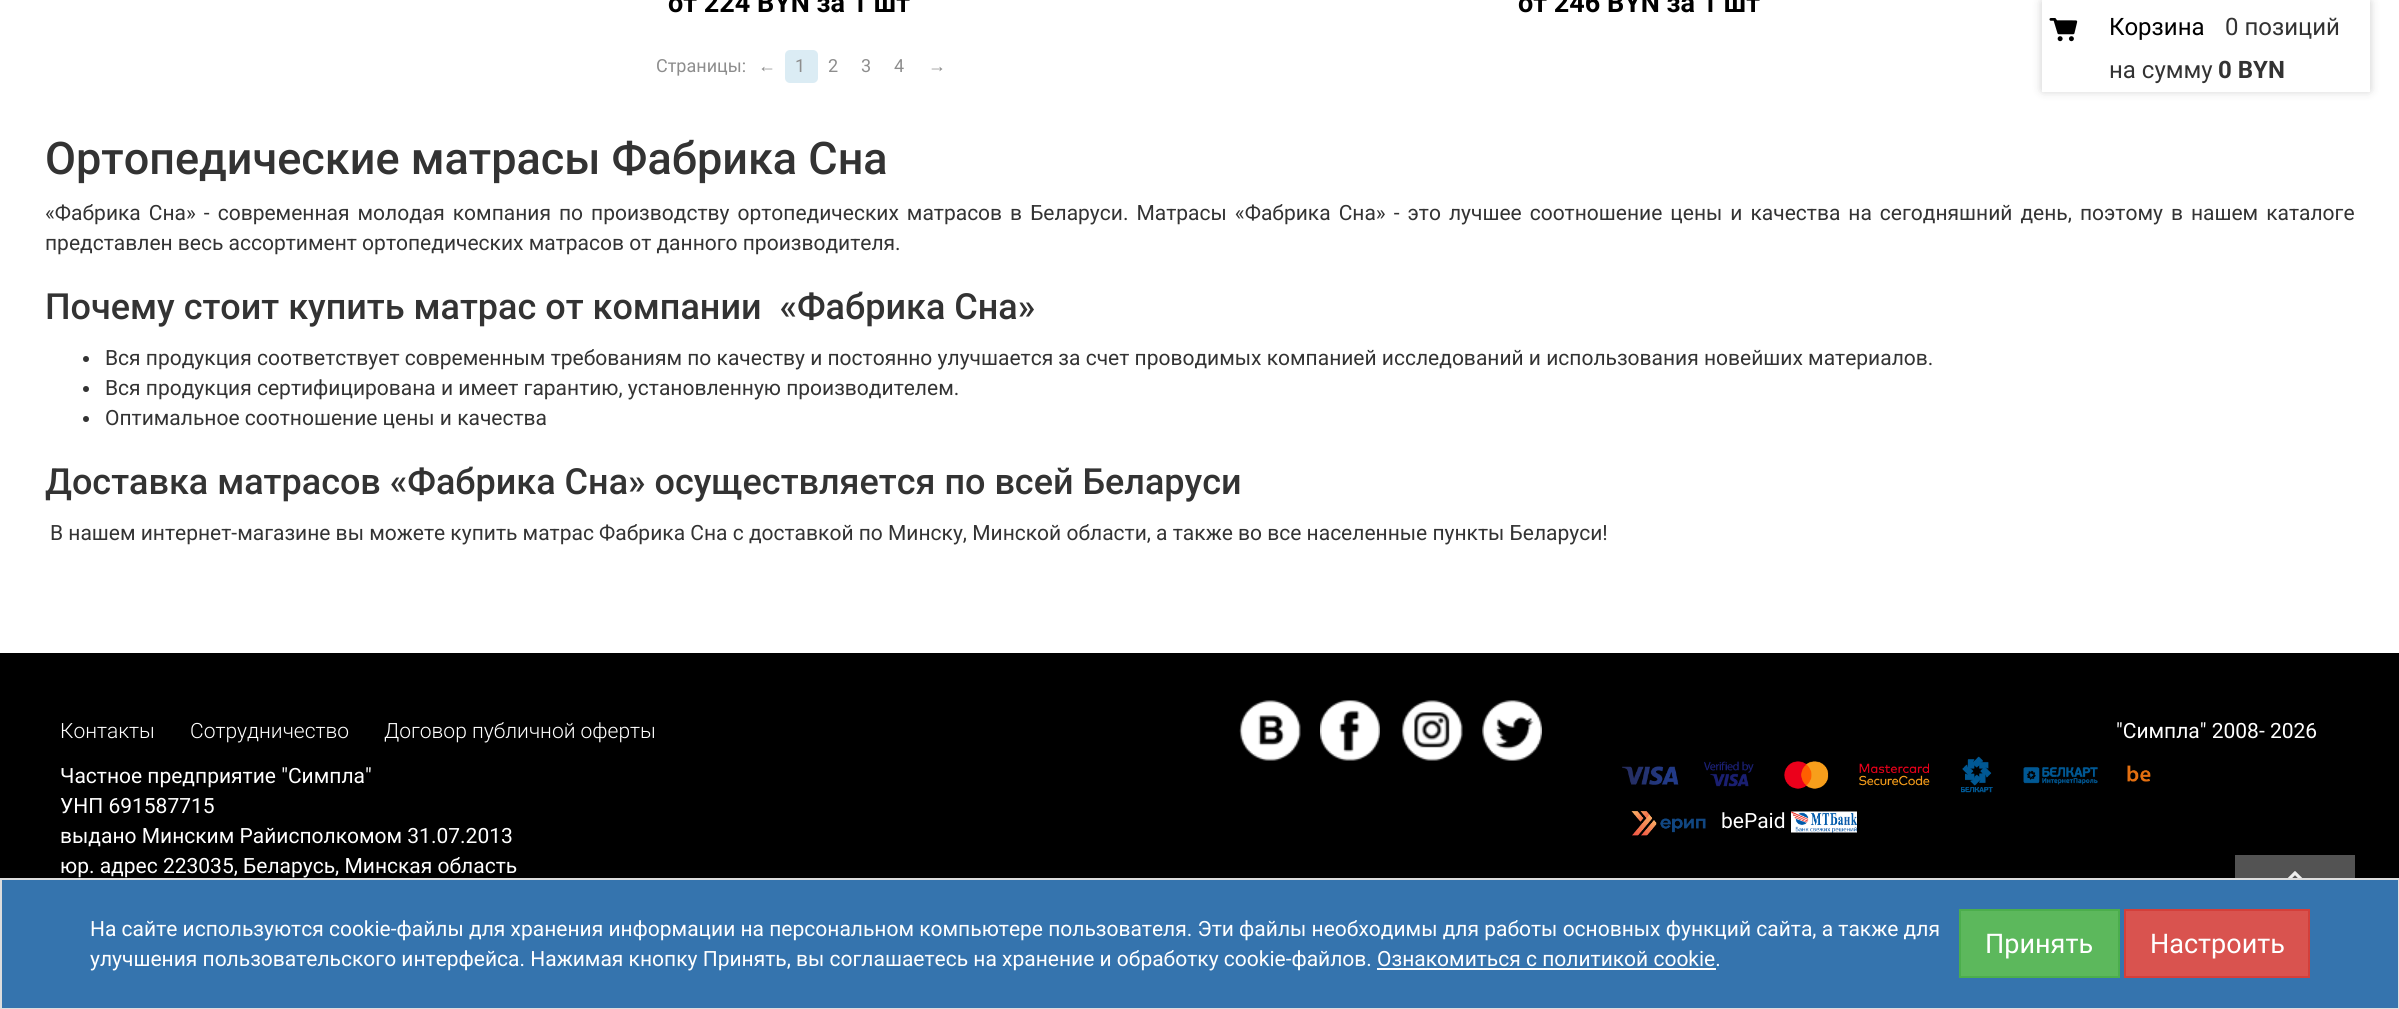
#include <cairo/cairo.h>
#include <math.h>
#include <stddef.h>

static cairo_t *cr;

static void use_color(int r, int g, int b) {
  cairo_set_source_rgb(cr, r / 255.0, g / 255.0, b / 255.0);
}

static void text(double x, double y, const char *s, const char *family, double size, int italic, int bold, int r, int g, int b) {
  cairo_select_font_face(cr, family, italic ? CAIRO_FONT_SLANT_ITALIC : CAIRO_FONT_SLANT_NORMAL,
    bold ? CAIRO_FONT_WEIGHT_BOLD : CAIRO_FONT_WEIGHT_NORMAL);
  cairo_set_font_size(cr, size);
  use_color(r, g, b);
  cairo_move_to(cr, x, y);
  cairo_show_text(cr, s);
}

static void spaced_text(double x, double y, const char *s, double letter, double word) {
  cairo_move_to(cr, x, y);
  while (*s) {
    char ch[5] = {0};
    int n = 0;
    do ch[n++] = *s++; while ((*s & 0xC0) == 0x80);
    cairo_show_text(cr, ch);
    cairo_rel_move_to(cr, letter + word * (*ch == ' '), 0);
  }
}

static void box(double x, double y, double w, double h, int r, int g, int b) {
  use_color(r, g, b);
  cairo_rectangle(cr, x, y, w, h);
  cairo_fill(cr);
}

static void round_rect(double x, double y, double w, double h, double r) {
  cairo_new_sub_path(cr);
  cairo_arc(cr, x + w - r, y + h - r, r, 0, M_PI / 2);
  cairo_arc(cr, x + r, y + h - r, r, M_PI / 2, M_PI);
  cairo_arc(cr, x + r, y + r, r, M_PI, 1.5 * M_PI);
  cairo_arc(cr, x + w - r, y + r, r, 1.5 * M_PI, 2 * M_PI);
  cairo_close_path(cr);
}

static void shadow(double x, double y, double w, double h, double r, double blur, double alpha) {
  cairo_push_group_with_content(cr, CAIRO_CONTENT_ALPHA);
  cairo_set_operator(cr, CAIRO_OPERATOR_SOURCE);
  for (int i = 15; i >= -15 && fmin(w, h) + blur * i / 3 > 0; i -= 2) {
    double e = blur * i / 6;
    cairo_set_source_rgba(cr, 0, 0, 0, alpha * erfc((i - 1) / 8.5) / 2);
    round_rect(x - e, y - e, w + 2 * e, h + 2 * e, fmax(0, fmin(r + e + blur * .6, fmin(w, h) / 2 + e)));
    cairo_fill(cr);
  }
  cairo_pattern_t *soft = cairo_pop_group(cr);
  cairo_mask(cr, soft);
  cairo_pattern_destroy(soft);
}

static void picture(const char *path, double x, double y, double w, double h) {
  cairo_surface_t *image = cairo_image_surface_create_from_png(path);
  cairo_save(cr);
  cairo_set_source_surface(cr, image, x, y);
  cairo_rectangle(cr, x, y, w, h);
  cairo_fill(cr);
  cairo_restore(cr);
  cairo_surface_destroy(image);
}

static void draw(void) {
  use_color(255, 255, 255);
  cairo_paint(cr);
  use_color(219, 236, 244);
  round_rect(785, 50, 33, 33, 5);
  cairo_fill(cr);
  use_color(51, 51, 51);
  cairo_arc(cr, 86, 359, 3, 0, 2 * M_PI);
  cairo_fill(cr);
  cairo_arc(cr, 86, 389, 3, 0, 2 * M_PI);
  cairo_fill(cr);
  cairo_arc(cr, 86, 419, 3, 0, 2 * M_PI);
  cairo_fill(cr);
  use_color(0, 0, 0);
  shadow(2043, 2, 326, 88, 0, 5, 0.25);
  box(2042, 0, 328, 92, 255, 255, 255);
  picture("img_01.png", 2049, 18, 29, 24);
  box(0, 653, 2399, 225, 0, 0, 0);
  picture("img_02.png", 1239, 700, 62, 61);
  picture("img_03.png", 1320, 700, 60, 61);
  picture("img_04.png", 1401, 700, 62, 61);
  picture("img_05.png", 1482, 700, 60, 61);
  picture("img_06.png", 1622, 756, 529, 37);
  picture("img_07.png", 1631, 811, 75, 25);
  picture("img_08.png", 1791, 811, 66, 22);
  box(2235, 855, 120, 23, 83, 83, 83);
  picture("img_09.png", 2287, 871, 16, 7);
  use_color(53, 116, 174);
  cairo_rectangle(cr, 1, 879, 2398, 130);
  cairo_fill_preserve(cr);
  use_color(221, 221, 221);
  cairo_stroke(cr);
  box(1377, 968, 339, 2, 255, 255, 255);
  use_color(92, 184, 92);
  cairo_rectangle(cr, 1960, 910, 159, 67);
  cairo_fill_preserve(cr);
  use_color(76, 174, 76);
  cairo_stroke(cr);
  use_color(217, 83, 79);
  cairo_rectangle(cr, 2125, 910, 184, 67);
  cairo_fill_preserve(cr);
  use_color(212, 63, 58);
  cairo_stroke(cr);
  text(668, 12, "от 224 BYN за 1 шт", "Roboto", 27, 0, 1, 0, 0, 0);
  text(1518, 12, "от 246 BYN за 1 шт", "Roboto", 27, 0, 1, 0, 0, 0);
  text(656, 72, "Страницы:", "Roboto", 18, 0, 0, 141, 141, 141);
  text(758, 72, "←", "Liberation Sans", 18, 0, 0, 141, 141, 141);
  text(795, 72, "1", "Roboto", 18, 0, 0, 141, 141, 141);
  text(828, 72, "2", "Roboto", 18, 0, 0, 141, 141, 141);
  text(861, 72, "3", "Roboto", 18, 0, 0, 141, 141, 141);
  text(894, 72, "4", "Roboto", 18, 0, 0, 141, 141, 141);
  text(928, 72, "→", "Liberation Sans", 18, 0, 0, 141, 141, 141);
  text(45, 174, "Ортопедические матрасы Фабрика Сна", "Roboto Medium", 45, 0, 0, 51, 51, 51);
  cairo_select_font_face(cr, "Roboto", CAIRO_FONT_SLANT_NORMAL, CAIRO_FONT_WEIGHT_NORMAL);
  cairo_set_font_size(cr, 21);
  spaced_text(45, 220, "«Фабрика Сна» - современная молодая компания по производству ортопедических матрасов в Беларуси. Матрасы «Фабрика Сна» - это лучшее соотношение цены и качества на сегодняшний день, поэтому в нашем каталоге", 0, 2.8);
  text(45, 250, "представлен весь ассортимент ортопедических матрасов от данного производителя.", "Roboto", 21, 0, 0, 51, 51, 51);
  text(45, 319, "Почему стоит купить матрас от компании  «Фабрика Сна»", "Roboto Medium", 36, 0, 0, 51, 51, 51);
  text(105, 365, "Вся продукция соответствует современным требованиям по качеству и постоянно улучшается за счет проводимых компанией исследований и использования новейших материалов.", "Roboto", 21, 0, 0, 51, 51, 51);
  text(105, 395, "Вся продукция сертифицирована и имеет гарантию, установленную производителем.", "Roboto", 21, 0, 0, 51, 51, 51);
  text(105, 425, "Оптимальное соотношение цены и качества", "Roboto", 21, 0, 0, 51, 51, 51);
  text(45, 494, "Доставка матрасов «Фабрика Сна» осуществляется по всей Беларуси", "Roboto Medium", 36, 0, 0, 51, 51, 51);
  text(50, 540, "В нашем интернет-магазине вы можете купить матрас Фабрика Сна с доставкой по Минску, Минской области, а также во все населенные пункты Беларуси!", "Roboto", 21, 0, 0, 51, 51, 51);
  text(2109, 35, "Корзина", "Roboto", 24, 0, 0, 0, 0, 0);
  text(2225, 35, "0 позиций", "Roboto", 24, 0, 0, 51, 51, 51);
  text(2109, 78, "на сумму", "Roboto", 24, 0, 0, 51, 51, 51);
  text(2218, 78, "0 BYN", "Roboto", 24, 0, 1, 51, 51, 51);
  text(60, 738, "Контакты", "Roboto Light", 21, 0, 0, 255, 255, 255);
  text(190, 738, "Сотрудничество", "Roboto Light", 21, 0, 0, 255, 255, 255);
  text(384, 738, "Договор публичной оферты", "Roboto Light", 21, 0, 0, 255, 255, 255);
  text(60, 783, "Частное предприятие \"Симпла\"", "Roboto", 21, 0, 0, 255, 255, 255);
  text(60, 813, "УНП 691587715", "Roboto", 21, 0, 0, 255, 255, 255);
  text(60, 843, "выдано Минским Райисполкомом 31.07.2013", "Roboto", 21, 0, 0, 255, 255, 255);
  text(60, 873, "юр. адрес 223035, Беларусь, Минская область", "Roboto", 21, 0, 0, 255, 255, 255);
  text(2116, 738, "\"Симпла\" 2008- 2026", "Roboto", 21, 0, 0, 255, 255, 255);
  text(1721, 828, "bePaid", "Roboto", 21, 0, 0, 255, 255, 255);
  text(90, 936, "На сайте используются cookie-файлы для хранения информации на персональном компьютере пользователя. Эти файлы необходимы для работы основных функций сайта, а также для", "Roboto", 21, 0, 0, 255, 255, 255);
  text(90, 966, "улучшения пользовательского интерфейса. Нажимая кнопку Принять, вы соглашаетесь на хранение и обработку cookie-файлов. Ознакомиться с политикой cookie.", "Roboto", 21, 0, 0, 255, 255, 255);
  text(1985, 953, "Принять", "Roboto", 27, 0, 0, 255, 255, 255);
  text(2150, 953, "Настроить", "Roboto", 27, 0, 0, 255, 255, 255);
}

int main(void) {
  cairo_surface_t *surface = cairo_image_surface_create(CAIRO_FORMAT_RGB24, 2399, 1009);
  cr = cairo_create(surface);
  cairo_font_options_t *options = cairo_font_options_create();
  cairo_font_options_set_hint_metrics(options, CAIRO_HINT_METRICS_OFF);
  cairo_font_options_set_hint_style(options, CAIRO_HINT_STYLE_NONE);
  cairo_set_font_options(cr, options);
  cairo_set_miter_limit(cr, 4);
  draw();
  cairo_surface_write_to_png(surface, "out.png");
  cairo_font_options_destroy(options);
  cairo_destroy(cr);
  cairo_surface_destroy(surface);
  return 0;
}
